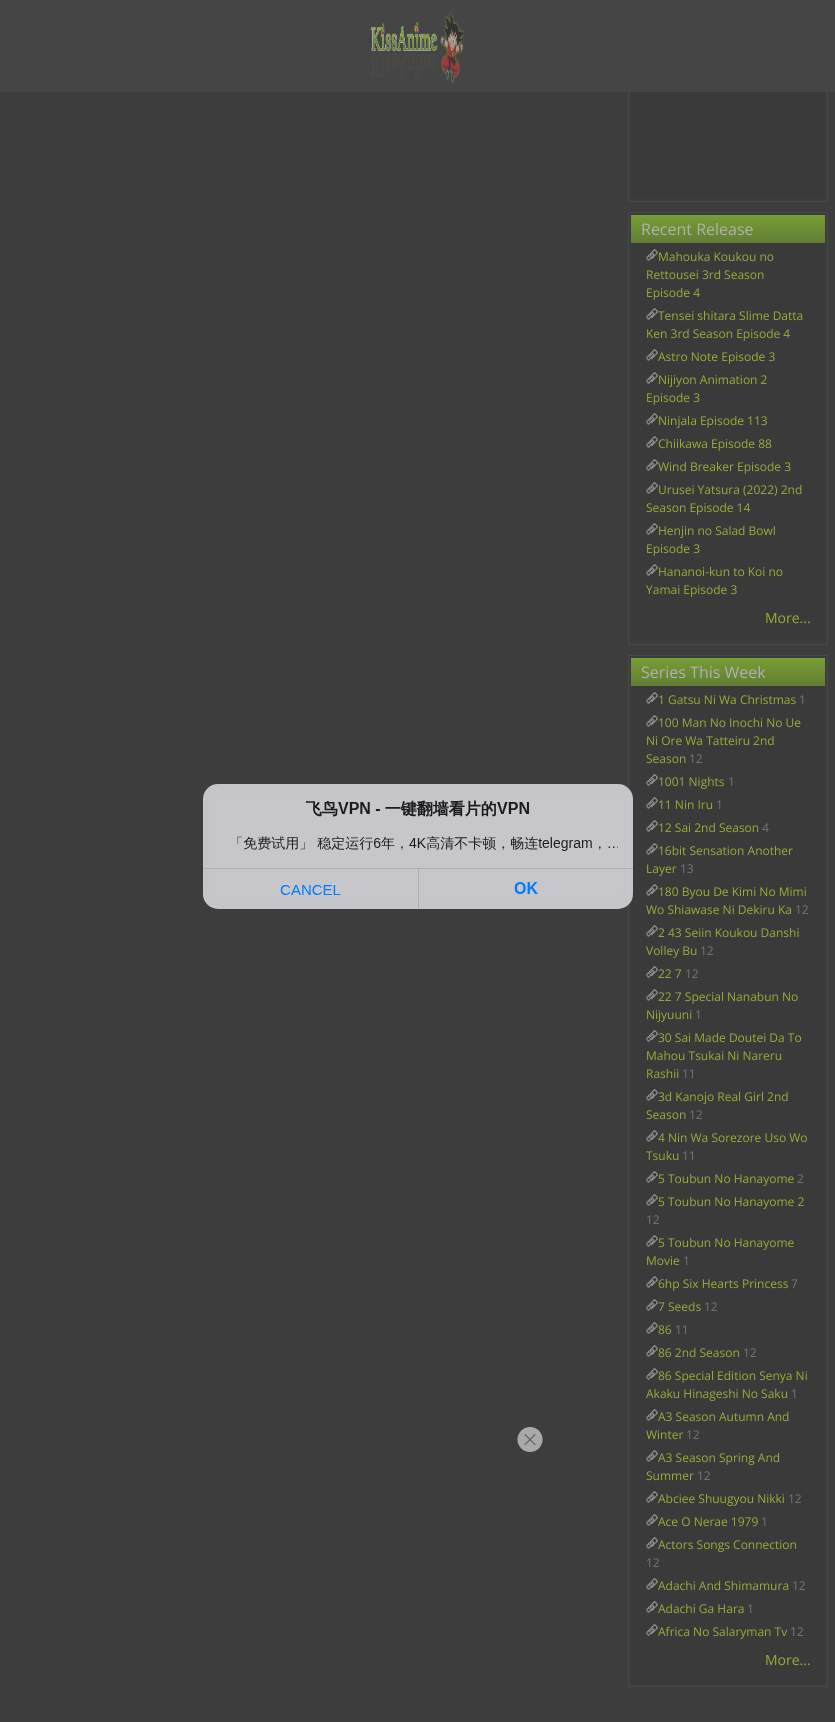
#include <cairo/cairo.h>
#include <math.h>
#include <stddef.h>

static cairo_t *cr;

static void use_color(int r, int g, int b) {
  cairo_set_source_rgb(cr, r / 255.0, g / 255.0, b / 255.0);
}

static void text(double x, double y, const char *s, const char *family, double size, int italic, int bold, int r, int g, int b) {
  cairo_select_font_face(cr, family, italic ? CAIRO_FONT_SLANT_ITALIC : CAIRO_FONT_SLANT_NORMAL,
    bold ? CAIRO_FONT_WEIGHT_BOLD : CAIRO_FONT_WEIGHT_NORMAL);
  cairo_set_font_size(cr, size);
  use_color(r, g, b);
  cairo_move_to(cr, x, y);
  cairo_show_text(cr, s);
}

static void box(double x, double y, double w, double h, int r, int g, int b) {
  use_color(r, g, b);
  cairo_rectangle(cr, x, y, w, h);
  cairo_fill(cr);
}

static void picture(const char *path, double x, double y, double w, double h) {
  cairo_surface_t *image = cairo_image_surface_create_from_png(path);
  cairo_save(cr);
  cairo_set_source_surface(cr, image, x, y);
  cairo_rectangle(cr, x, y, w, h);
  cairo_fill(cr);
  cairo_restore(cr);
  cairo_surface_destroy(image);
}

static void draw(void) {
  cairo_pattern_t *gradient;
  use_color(22, 22, 22);
  cairo_paint(cr);
  cairo_rectangle(cr, 628.5, -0.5, 199, 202);
  use_color(47, 47, 47);
  cairo_set_line_width(cr, 1);
  cairo_stroke(cr);
  box(0, 0, 835, 92, 39, 38, 38);
  picture("img_01.png", 371, 10, 93, 74);
  picture("img_03.png", 517, 1427, 26, 25);
  box(631, 92, 194, 107, 17, 17, 17);
  cairo_rectangle(cr, 628.5, 212.5, 199, 432);
  use_color(47, 47, 47);
  cairo_stroke(cr);
  gradient = cairo_pattern_create_linear(728, 215, 728, 243);
  cairo_pattern_add_color_stop_rgba(gradient, 0, 0.533, 0.851, 0.008, 1);
  cairo_pattern_add_color_stop_rgba(gradient, 1, 0.373, 0.596, 0.016, 1);
  cairo_set_source(cr, gradient);
  cairo_pattern_destroy(gradient);
  cairo_rectangle(cr, 631, 215, 194, 28);
  cairo_fill(cr);
  box(631, 243, 194, 399, 17, 17, 17);
  picture("img_04.png", 646, 249, 12, 12);
  picture("img_04.png", 646, 308, 12, 12);
  picture("img_04.png", 646, 349, 12, 12);
  picture("img_04.png", 646, 372, 12, 12);
  picture("img_04.png", 646, 413, 12, 12);
  picture("img_04.png", 646, 436, 12, 12);
  picture("img_04.png", 646, 459, 12, 12);
  picture("img_04.png", 646, 482, 12, 12);
  picture("img_04.png", 646, 523, 12, 12);
  picture("img_04.png", 646, 564, 12, 12);
  cairo_rectangle(cr, 628.5, 655.5, 199, 1031);
  use_color(47, 47, 47);
  cairo_stroke(cr);
  gradient = cairo_pattern_create_linear(728, 658, 728, 686);
  cairo_pattern_add_color_stop_rgba(gradient, 0, 0.533, 0.851, 0.008, 1);
  cairo_pattern_add_color_stop_rgba(gradient, 1, 0.373, 0.596, 0.016, 1);
  cairo_set_source(cr, gradient);
  cairo_pattern_destroy(gradient);
  cairo_rectangle(cr, 631, 658, 194, 28);
  cairo_fill(cr);
  box(631, 686, 194, 998, 17, 17, 17);
  picture("img_04.png", 646, 692, 12, 12);
  picture("img_04.png", 646, 715, 12, 12);
  picture("img_04.png", 646, 774, 12, 12);
  picture("img_04.png", 646, 797, 12, 12);
  picture("img_04.png", 646, 820, 12, 12);
  picture("img_04.png", 646, 843, 12, 12);
  picture("img_04.png", 646, 884, 12, 12);
  picture("img_04.png", 646, 925, 12, 12);
  picture("img_04.png", 646, 966, 12, 12);
  picture("img_04.png", 646, 989, 12, 12);
  picture("img_04.png", 646, 1030, 12, 12);
  picture("img_04.png", 646, 1089, 12, 12);
  picture("img_04.png", 646, 1130, 12, 12);
  picture("img_04.png", 646, 1171, 12, 12);
  picture("img_04.png", 646, 1194, 12, 12);
  picture("img_04.png", 646, 1235, 12, 12);
  picture("img_04.png", 646, 1276, 12, 12);
  picture("img_04.png", 646, 1299, 12, 12);
  picture("img_04.png", 646, 1322, 12, 12);
  picture("img_04.png", 646, 1345, 12, 12);
  picture("img_04.png", 646, 1368, 12, 12);
  picture("img_04.png", 646, 1409, 12, 12);
  picture("img_04.png", 646, 1450, 12, 12);
  picture("img_04.png", 646, 1491, 12, 12);
  picture("img_04.png", 646, 1514, 12, 12);
  picture("img_04.png", 646, 1537, 12, 12);
  picture("img_04.png", 646, 1578, 12, 12);
  picture("img_04.png", 646, 1601, 12, 12);
  picture("img_04.png", 646, 1624, 12, 12);
  text(641, 235, "Recent Release", "Open Sans", 16, 0, 0, 255, 255, 255);
  text(658, 261, "Mahouka Koukou no", "Open Sans", 12, 0, 0, 213, 244, 6);
  text(646, 279, "Rettousei 3rd Season", "Open Sans", 12, 0, 0, 213, 244, 6);
  text(646, 297, "Episode 4", "Open Sans", 12, 0, 0, 213, 244, 6);
  text(658, 320, "Tensei shitara Slime Datta", "Open Sans", 12, 0, 0, 213, 244, 6);
  text(646, 338, "Ken 3rd Season Episode 4", "Open Sans", 12, 0, 0, 213, 244, 6);
  text(658, 361, "Astro Note Episode 3", "Open Sans", 12, 0, 0, 213, 244, 6);
  text(658, 384, "Nijiyon Animation 2", "Open Sans", 12, 0, 0, 213, 244, 6);
  text(646, 402, "Episode 3", "Open Sans", 12, 0, 0, 213, 244, 6);
  text(658, 425, "Ninjala Episode 113", "Open Sans", 12, 0, 0, 213, 244, 6);
  text(658, 448, "Chiikawa Episode 88", "Open Sans", 12, 0, 0, 213, 244, 6);
  text(658, 471, "Wind Breaker Episode 3", "Open Sans", 12, 0, 0, 213, 244, 6);
  text(658, 494, "Urusei Yatsura (2022) 2nd", "Open Sans", 12, 0, 0, 213, 244, 6);
  text(646, 512, "Season Episode 14", "Open Sans", 12, 0, 0, 213, 244, 6);
  text(658, 535, "Henjin no Salad Bowl", "Open Sans", 12, 0, 0, 213, 244, 6);
  text(646, 553, "Episode 3", "Open Sans", 12, 0, 0, 213, 244, 6);
  text(658, 576, "Hananoi-kun to Koi no", "Open Sans", 12, 0, 0, 213, 244, 6);
  text(646, 594, "Yamai Episode 3", "Open Sans", 12, 0, 0, 213, 244, 6);
  text(765, 623, "More...", "Open Sans", 14, 0, 0, 213, 244, 6);
  text(641, 678, "Series This Week", "Open Sans", 16, 0, 0, 255, 255, 255);
  text(658, 704, "1 Gatsu Ni Wa Christmas", "Open Sans", 12, 0, 0, 213, 244, 6);
  text(799, 704, "1", "Open Sans", 12, 0, 0, 136, 136, 136);
  text(658, 727, "100 Man No Inochi No Ue", "Open Sans", 12, 0, 0, 213, 244, 6);
  text(646, 745, "Ni Ore Wa Tatteiru 2nd", "Open Sans", 12, 0, 0, 213, 244, 6);
  text(646, 763, "Season", "Open Sans", 12, 0, 0, 213, 244, 6);
  text(689, 763, "12", "Open Sans", 12, 0, 0, 136, 136, 136);
  text(658, 786, "1001 Nights", "Open Sans", 12, 0, 0, 213, 244, 6);
  text(728, 786, "1", "Open Sans", 12, 0, 0, 136, 136, 136);
  text(658, 809, "11 Nin Iru", "Open Sans", 12, 0, 0, 213, 244, 6);
  text(716, 809, "1", "Open Sans", 12, 0, 0, 136, 136, 136);
  text(658, 832, "12 Sai 2nd Season", "Open Sans", 12, 0, 0, 213, 244, 6);
  text(762, 832, "4", "Open Sans", 12, 0, 0, 136, 136, 136);
  text(658, 855, "16bit Sensation Another", "Open Sans", 12, 0, 0, 213, 244, 6);
  text(646, 873, "Layer", "Open Sans", 12, 0, 0, 213, 244, 6);
  text(680, 873, "13", "Open Sans", 12, 0, 0, 136, 136, 136);
  text(658, 896, "180 Byou De Kimi No Mimi", "Open Sans", 12, 0, 0, 213, 244, 6);
  text(646, 914, "Wo Shiawase Ni Dekiru Ka", "Open Sans", 12, 0, 0, 213, 244, 6);
  text(795, 914, "12", "Open Sans", 12, 0, 0, 136, 136, 136);
  text(658, 937, "2 43 Seiin Koukou Danshi", "Open Sans", 12, 0, 0, 213, 244, 6);
  text(646, 955, "Volley Bu", "Open Sans", 12, 0, 0, 213, 244, 6);
  text(700, 955, "12", "Open Sans", 12, 0, 0, 136, 136, 136);
  text(658, 978, "22 7", "Open Sans", 12, 0, 0, 213, 244, 6);
  text(685, 978, "12", "Open Sans", 12, 0, 0, 136, 136, 136);
  text(658, 1001, "22 7 Special Nanabun No", "Open Sans", 12, 0, 0, 213, 244, 6);
  text(646, 1019, "Nijyuuni", "Open Sans", 12, 0, 0, 213, 244, 6);
  text(695, 1019, "1", "Open Sans", 12, 0, 0, 136, 136, 136);
  text(658, 1042, "30 Sai Made Doutei Da To", "Open Sans", 12, 0, 0, 213, 244, 6);
  text(646, 1060, "Mahou Tsukai Ni Nareru", "Open Sans", 12, 0, 0, 213, 244, 6);
  text(646, 1078, "Rashii", "Open Sans", 12, 0, 0, 213, 244, 6);
  text(682, 1078, "11", "Open Sans", 12, 0, 0, 136, 136, 136);
  text(658, 1101, "3d Kanojo Real Girl 2nd", "Open Sans", 12, 0, 0, 213, 244, 6);
  text(646, 1119, "Season", "Open Sans", 12, 0, 0, 213, 244, 6);
  text(689, 1119, "12", "Open Sans", 12, 0, 0, 136, 136, 136);
  text(658, 1142, "4 Nin Wa Sorezore Uso Wo", "Open Sans", 12, 0, 0, 213, 244, 6);
  text(646, 1160, "Tsuku", "Open Sans", 12, 0, 0, 213, 244, 6);
  text(682, 1160, "11", "Open Sans", 12, 0, 0, 136, 136, 136);
  text(658, 1183, "5 Toubun No Hanayome", "Open Sans", 12, 0, 0, 213, 244, 6);
  text(797, 1183, "2", "Open Sans", 12, 0, 0, 136, 136, 136);
  text(658, 1206, "5 Toubun No Hanayome 2", "Open Sans", 12, 0, 0, 213, 244, 6);
  text(646, 1224, "12", "Open Sans", 12, 0, 0, 136, 136, 136);
  text(658, 1247, "5 Toubun No Hanayome", "Open Sans", 12, 0, 0, 213, 244, 6);
  text(646, 1265, "Movie", "Open Sans", 12, 0, 0, 213, 244, 6);
  text(683, 1265, "1", "Open Sans", 12, 0, 0, 136, 136, 136);
  text(658, 1288, "6hp Six Hearts Princess", "Open Sans", 12, 0, 0, 213, 244, 6);
  text(791, 1288, "7", "Open Sans", 12, 0, 0, 136, 136, 136);
  text(658, 1311, "7 Seeds", "Open Sans", 12, 0, 0, 213, 244, 6);
  text(704, 1311, "12", "Open Sans", 12, 0, 0, 136, 136, 136);
  text(658, 1334, "86", "Open Sans", 12, 0, 0, 213, 244, 6);
  text(675, 1334, "11", "Open Sans", 12, 0, 0, 136, 136, 136);
  text(658, 1357, "86 2nd Season", "Open Sans", 12, 0, 0, 213, 244, 6);
  text(743, 1357, "12", "Open Sans", 12, 0, 0, 136, 136, 136);
  text(658, 1380, "86 Special Edition Senya Ni", "Open Sans", 12, 0, 0, 213, 244, 6);
  text(646, 1398, "Akaku Hinageshi No Saku", "Open Sans", 12, 0, 0, 213, 244, 6);
  text(791, 1398, "1", "Open Sans", 12, 0, 0, 136, 136, 136);
  text(658, 1421, "A3 Season Autumn And", "Open Sans", 12, 0, 0, 213, 244, 6);
  text(646, 1439, "Winter", "Open Sans", 12, 0, 0, 213, 244, 6);
  text(686, 1439, "12", "Open Sans", 12, 0, 0, 136, 136, 136);
  text(658, 1462, "A3 Season Spring And", "Open Sans", 12, 0, 0, 213, 244, 6);
  text(646, 1480, "Summer", "Open Sans", 12, 0, 0, 213, 244, 6);
  text(697, 1480, "12", "Open Sans", 12, 0, 0, 136, 136, 136);
  text(658, 1503, "Abciee Shuugyou Nikki", "Open Sans", 12, 0, 0, 213, 244, 6);
  text(788, 1503, "12", "Open Sans", 12, 0, 0, 136, 136, 136);
  text(658, 1526, "Ace O Nerae 1979", "Open Sans", 12, 0, 0, 213, 244, 6);
  text(761, 1526, "1", "Open Sans", 12, 0, 0, 136, 136, 136);
  text(658, 1549, "Actors Songs Connection", "Open Sans", 12, 0, 0, 213, 244, 6);
  text(646, 1567, "12", "Open Sans", 12, 0, 0, 136, 136, 136);
  text(658, 1590, "Adachi And Shimamura", "Open Sans", 12, 0, 0, 213, 244, 6);
  text(792, 1590, "12", "Open Sans", 12, 0, 0, 136, 136, 136);
  text(658, 1613, "Adachi Ga Hara", "Open Sans", 12, 0, 0, 213, 244, 6);
  text(747, 1613, "1", "Open Sans", 12, 0, 0, 136, 136, 136);
  text(658, 1636, "Africa No Salaryman Tv", "Open Sans", 12, 0, 0, 213, 244, 6);
  text(790, 1636, "12", "Open Sans", 12, 0, 0, 136, 136, 136);
  text(765, 1665, "More...", "Open Sans", 14, 0, 0, 213, 244, 6);
  picture("img_02.png", 0, 0, 835, 1722);
}

int main(void) {
  cairo_surface_t *surface = cairo_image_surface_create(CAIRO_FORMAT_RGB24, 835, 1722);
  cr = cairo_create(surface);
  cairo_font_options_t *options = cairo_font_options_create();
  cairo_font_options_set_hint_metrics(options, CAIRO_HINT_METRICS_OFF);
  cairo_font_options_set_hint_style(options, CAIRO_HINT_STYLE_NONE);
  cairo_set_font_options(cr, options);
  cairo_set_miter_limit(cr, 4);
  draw();
  cairo_surface_write_to_png(surface, "out.png");
  cairo_font_options_destroy(options);
  cairo_destroy(cr);
  cairo_surface_destroy(surface);
  return 0;
}
